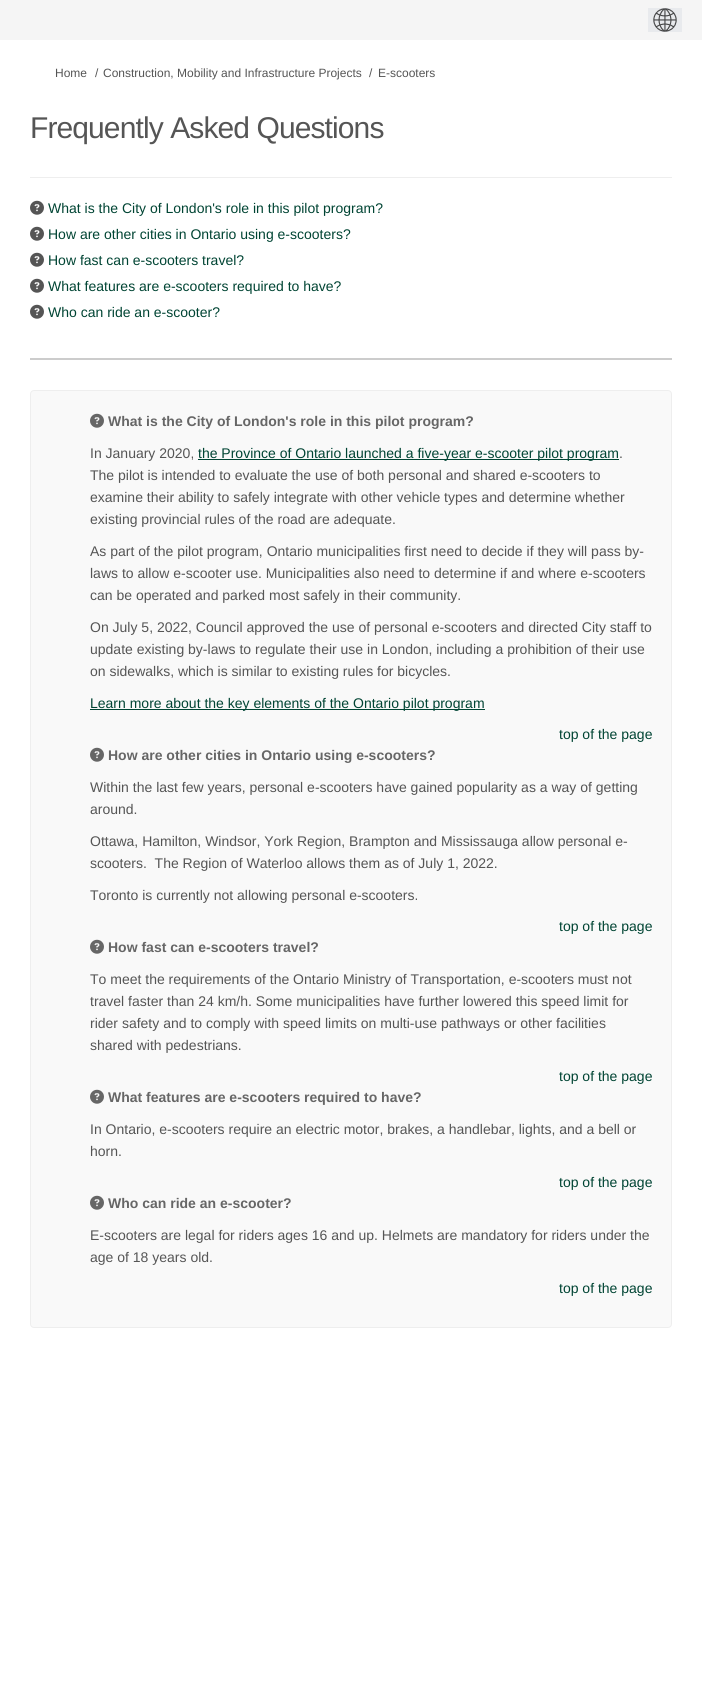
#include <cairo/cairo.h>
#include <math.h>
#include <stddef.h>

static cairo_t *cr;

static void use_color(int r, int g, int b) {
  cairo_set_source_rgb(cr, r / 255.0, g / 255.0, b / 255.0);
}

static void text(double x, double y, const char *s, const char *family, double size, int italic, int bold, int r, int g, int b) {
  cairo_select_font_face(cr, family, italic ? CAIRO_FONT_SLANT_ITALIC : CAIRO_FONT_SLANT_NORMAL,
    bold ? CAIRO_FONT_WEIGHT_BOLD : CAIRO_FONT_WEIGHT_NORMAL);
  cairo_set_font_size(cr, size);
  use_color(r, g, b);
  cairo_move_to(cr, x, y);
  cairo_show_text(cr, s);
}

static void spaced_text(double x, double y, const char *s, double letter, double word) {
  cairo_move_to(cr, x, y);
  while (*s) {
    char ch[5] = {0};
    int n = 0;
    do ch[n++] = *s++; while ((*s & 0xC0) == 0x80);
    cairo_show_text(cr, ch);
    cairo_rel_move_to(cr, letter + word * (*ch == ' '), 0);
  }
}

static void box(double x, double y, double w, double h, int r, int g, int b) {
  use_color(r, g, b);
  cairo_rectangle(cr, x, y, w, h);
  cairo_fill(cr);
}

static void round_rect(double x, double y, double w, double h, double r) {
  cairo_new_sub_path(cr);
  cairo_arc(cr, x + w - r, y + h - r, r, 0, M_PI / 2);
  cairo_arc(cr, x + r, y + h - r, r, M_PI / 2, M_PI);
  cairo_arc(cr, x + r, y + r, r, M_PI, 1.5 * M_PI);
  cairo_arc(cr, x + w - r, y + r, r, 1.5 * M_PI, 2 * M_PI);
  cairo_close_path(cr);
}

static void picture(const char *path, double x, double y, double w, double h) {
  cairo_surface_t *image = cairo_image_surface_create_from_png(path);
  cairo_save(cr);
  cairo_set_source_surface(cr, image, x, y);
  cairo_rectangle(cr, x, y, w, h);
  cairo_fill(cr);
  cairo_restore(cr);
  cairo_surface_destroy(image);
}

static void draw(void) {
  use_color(255, 255, 255);
  cairo_paint(cr);
  box(0, 0, 702, 40, 245, 245, 245);
  box(648, 8, 34, 24, 232, 234, 237);
  picture("img_01.png", 653, 8, 24, 24);
  box(30, 177, 642, 1, 238, 238, 238);
  box(30, 358, 642, 2, 204, 204, 204);
  picture("img_02.png", 30, 200, 14, 15);
  picture("img_02.png", 30, 226, 14, 15);
  picture("img_02.png", 30, 252, 14, 15);
  picture("img_02.png", 30, 278, 14, 15);
  picture("img_02.png", 30, 304, 14, 15);
  use_color(249, 249, 249);
  round_rect(30.5, 390.5, 641, 937, 3.5);
  cairo_fill_preserve(cr);
  use_color(238, 238, 238);
  cairo_set_line_width(cr, 1);
  cairo_stroke(cr);
  picture("img_03.png", 90, 413, 14, 15);
  box(198, 459, 421, 1, 0, 68, 51);
  box(90, 709, 395, 1, 0, 68, 51);
  picture("img_03.png", 90, 747, 14, 15);
  picture("img_03.png", 90, 939, 14, 15);
  picture("img_03.png", 90, 1089, 14, 15);
  picture("img_03.png", 90, 1195, 14, 15);
  text(55, 77, "Home", "Liberation Sans", 12, 0, 0, 85, 85, 85);
  text(95, 77, "/", "Liberation Sans", 12, 0, 0, 85, 85, 85);
  text(103, 77, "Construction, Mobility and Infrastructure Projects", "Liberation Sans", 12, 0, 0, 85, 85, 85);
  text(369, 77, "/", "Liberation Sans", 12, 0, 0, 85, 85, 85);
  text(378, 77, "E-scooters", "Liberation Sans", 12, 0, 0, 85, 85, 85);
  cairo_set_font_size(cr, 30);
  spaced_text(30, 138, "Frequently Asked Questions", -0.9, 0);
  text(48, 213, "What is the City of London's role in this pilot program?", "Liberation Sans", 14, 0, 0, 0, 68, 51);
  text(48, 239, "How are other cities in Ontario using e-scooters?", "Liberation Sans", 14, 0, 0, 0, 68, 51);
  text(48, 265, "How fast can e-scooters travel?", "Liberation Sans", 14, 0, 0, 0, 68, 51);
  text(48, 291, "What features are e-scooters required to have?", "Liberation Sans", 14, 0, 0, 0, 68, 51);
  text(48, 317, "Who can ride an e-scooter?", "Liberation Sans", 14, 0, 0, 0, 68, 51);
  text(108, 426, "What is the City of London's role in this pilot program?", "Liberation Sans", 14, 0, 1, 102, 102, 102);
  text(90, 458, "In January 2020,", "Liberation Sans", 14, 0, 0, 85, 85, 85);
  text(198, 458, "the Province of Ontario launched a five-year e-scooter pilot program", "Liberation Sans", 14, 0, 0, 0, 68, 51);
  text(619, 458, ".", "Liberation Sans", 14, 0, 0, 85, 85, 85);
  text(90, 480, "The pilot is intended to evaluate the use of both personal and shared e-scooters to", "Liberation Sans", 14, 0, 0, 85, 85, 85);
  text(90, 502, "examine their ability to safely integrate with other vehicle types and determine whether", "Liberation Sans", 14, 0, 0, 85, 85, 85);
  text(90, 524, "existing provincial rules of the road are adequate.", "Liberation Sans", 14, 0, 0, 85, 85, 85);
  text(90, 556, "As part of the pilot program, Ontario municipalities first need to decide if they will pass by-", "Liberation Sans", 14, 0, 0, 85, 85, 85);
  text(90, 578, "laws to allow e-scooter use. Municipalities also need to determine if and where e-scooters", "Liberation Sans", 14, 0, 0, 85, 85, 85);
  text(90, 600, "can be operated and parked most safely in their community.", "Liberation Sans", 14, 0, 0, 85, 85, 85);
  text(90, 632, "On July 5, 2022, Council approved the use of personal e-scooters and directed City staff to", "Liberation Sans", 14, 0, 0, 85, 85, 85);
  text(90, 654, "update existing by-laws to regulate their use in London, including a prohibition of their use", "Liberation Sans", 14, 0, 0, 85, 85, 85);
  text(90, 676, "on sidewalks, which is similar to existing rules for bicycles.", "Liberation Sans", 14, 0, 0, 85, 85, 85);
  text(90, 708, "Learn more about the key elements of the Ontario pilot program", "Liberation Sans", 14, 0, 0, 0, 68, 51);
  text(559, 739, "top of the page", "Liberation Sans", 14, 0, 0, 0, 68, 51);
  text(108, 760, "How are other cities in Ontario using e-scooters?", "Liberation Sans", 14, 0, 1, 102, 102, 102);
  text(90, 792, "Within the last few years, personal e-scooters have gained popularity as a way of getting", "Liberation Sans", 14, 0, 0, 85, 85, 85);
  text(90, 814, "around.", "Liberation Sans", 14, 0, 0, 85, 85, 85);
  text(90, 846, "Ottawa, Hamilton, Windsor, York Region, Brampton and Mississauga allow personal e-", "Liberation Sans", 14, 0, 0, 85, 85, 85);
  text(90, 868, "scooters.  The Region of Waterloo allows them as of July 1, 2022.", "Liberation Sans", 14, 0, 0, 85, 85, 85);
  text(90, 900, "Toronto is currently not allowing personal e-scooters.", "Liberation Sans", 14, 0, 0, 85, 85, 85);
  text(559, 931, "top of the page", "Liberation Sans", 14, 0, 0, 0, 68, 51);
  text(108, 952, "How fast can e-scooters travel?", "Liberation Sans", 14, 0, 1, 102, 102, 102);
  text(90, 984, "To meet the requirements of the Ontario Ministry of Transportation, e-scooters must not", "Liberation Sans", 14, 0, 0, 85, 85, 85);
  text(90, 1006, "travel faster than 24 km/h. Some municipalities have further lowered this speed limit for", "Liberation Sans", 14, 0, 0, 85, 85, 85);
  text(90, 1028, "rider safety and to comply with speed limits on multi-use pathways or other facilities", "Liberation Sans", 14, 0, 0, 85, 85, 85);
  text(90, 1050, "shared with pedestrians.", "Liberation Sans", 14, 0, 0, 85, 85, 85);
  text(559, 1081, "top of the page", "Liberation Sans", 14, 0, 0, 0, 68, 51);
  text(108, 1102, "What features are e-scooters required to have?", "Liberation Sans", 14, 0, 1, 102, 102, 102);
  text(90, 1134, "In Ontario, e-scooters require an electric motor, brakes, a handlebar, lights, and a bell or", "Liberation Sans", 14, 0, 0, 85, 85, 85);
  text(90, 1156, "horn.", "Liberation Sans", 14, 0, 0, 85, 85, 85);
  text(559, 1187, "top of the page", "Liberation Sans", 14, 0, 0, 0, 68, 51);
  text(108, 1208, "Who can ride an e-scooter?", "Liberation Sans", 14, 0, 1, 102, 102, 102);
  text(90, 1240, "E-scooters are legal for riders ages 16 and up. Helmets are mandatory for riders under the", "Liberation Sans", 14, 0, 0, 85, 85, 85);
  text(90, 1262, "age of 18 years old.", "Liberation Sans", 14, 0, 0, 85, 85, 85);
  text(559, 1293, "top of the page", "Liberation Sans", 14, 0, 0, 0, 68, 51);
}

int main(void) {
  cairo_surface_t *surface = cairo_image_surface_create(CAIRO_FORMAT_RGB24, 702, 1692);
  cr = cairo_create(surface);
  cairo_font_options_t *options = cairo_font_options_create();
  cairo_font_options_set_hint_metrics(options, CAIRO_HINT_METRICS_OFF);
  cairo_font_options_set_hint_style(options, CAIRO_HINT_STYLE_NONE);
  cairo_set_font_options(cr, options);
  cairo_set_miter_limit(cr, 4);
  draw();
  cairo_surface_write_to_png(surface, "out.png");
  cairo_font_options_destroy(options);
  cairo_destroy(cr);
  cairo_surface_destroy(surface);
  return 0;
}
